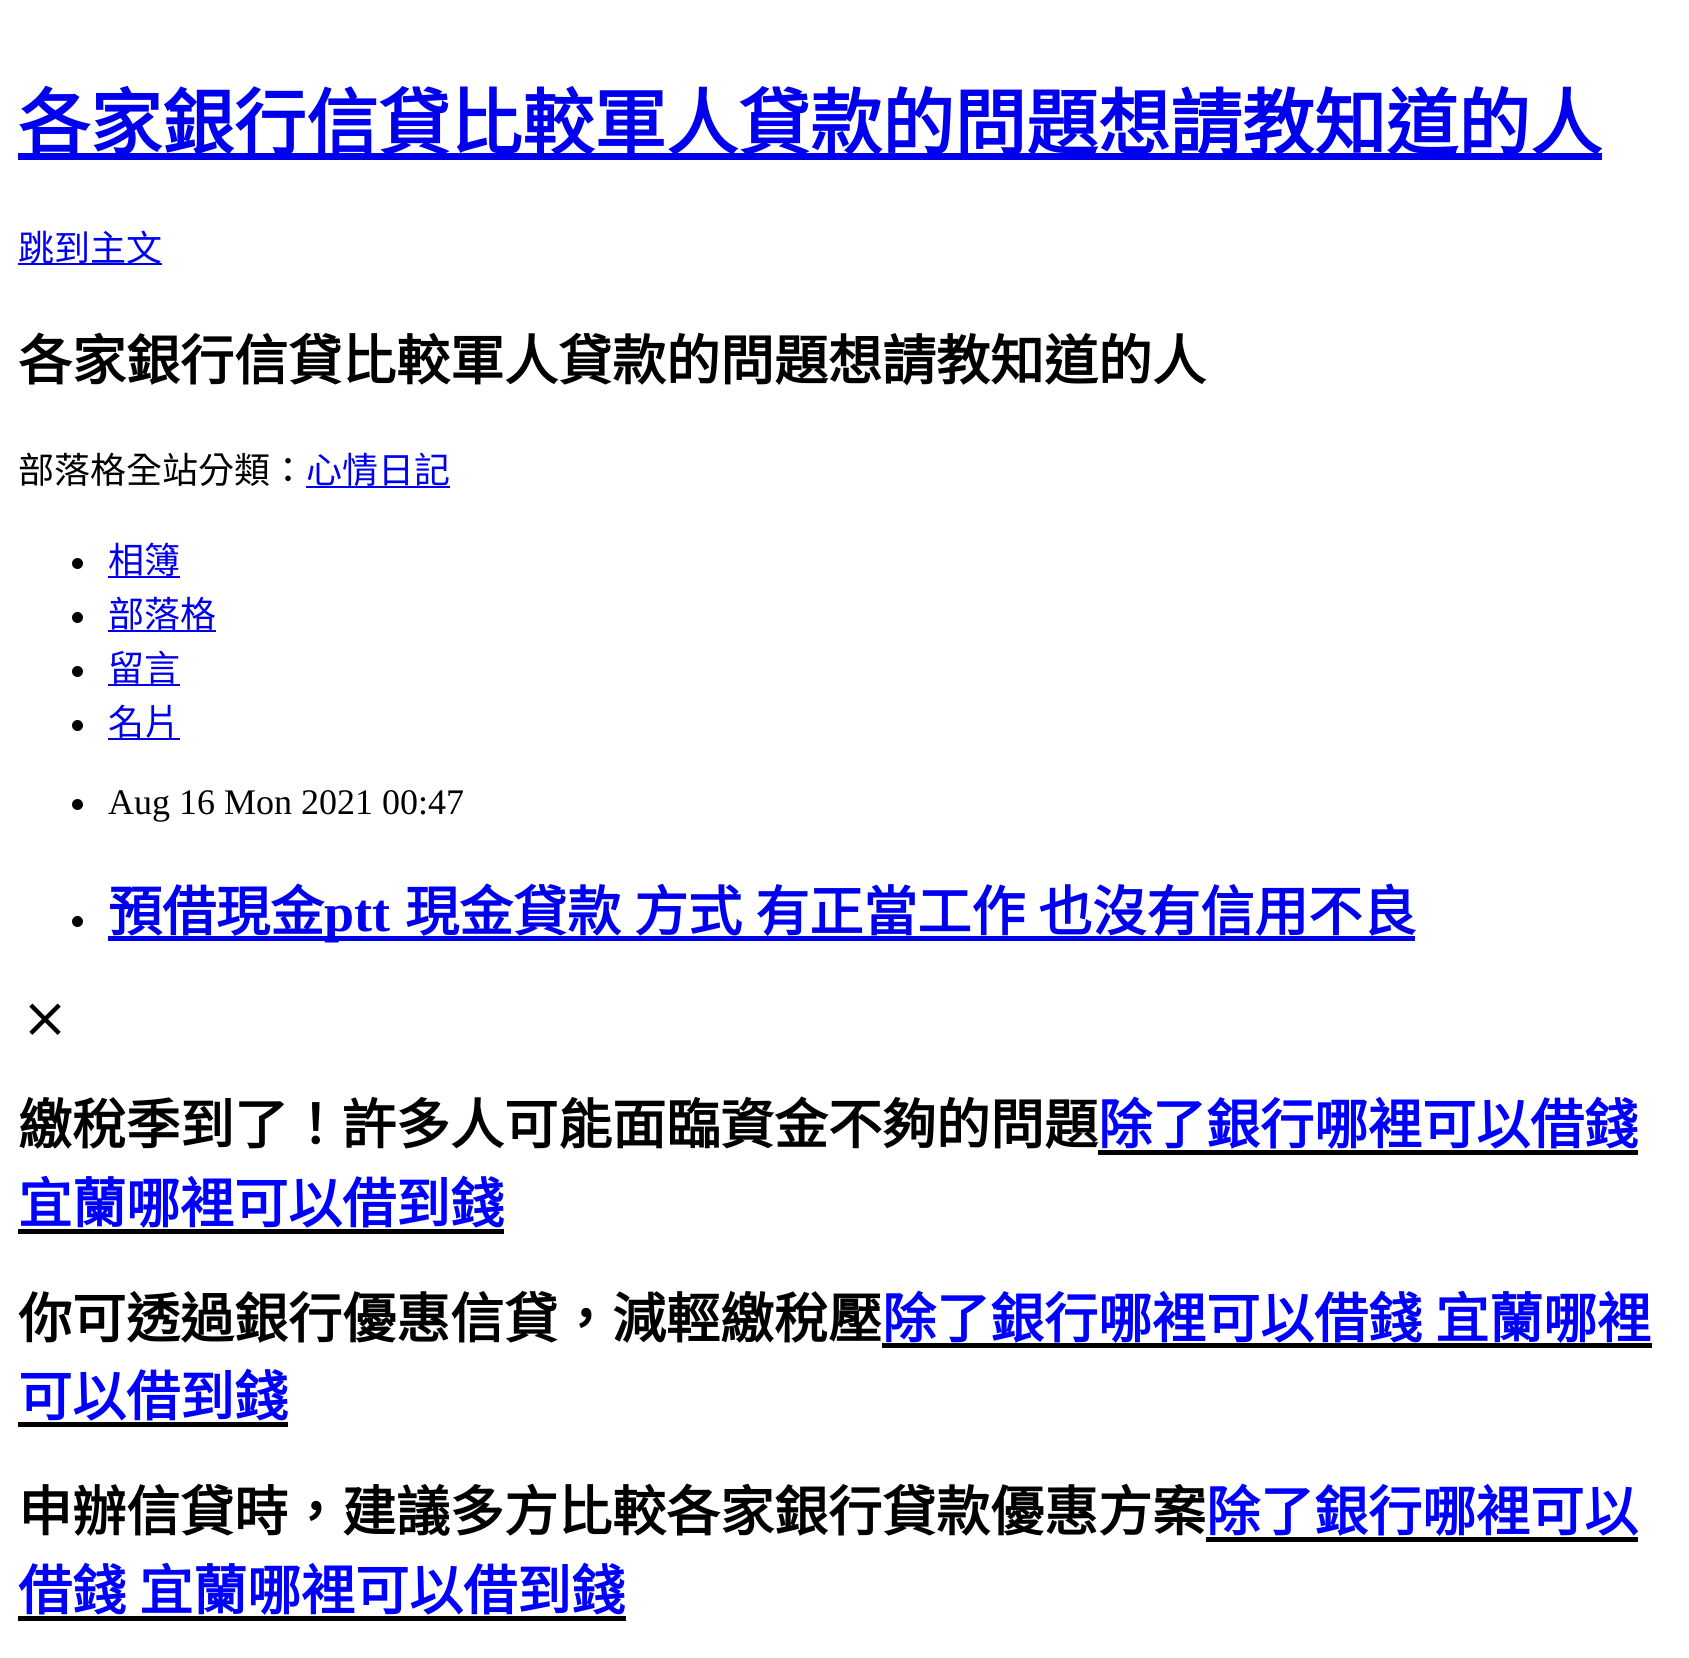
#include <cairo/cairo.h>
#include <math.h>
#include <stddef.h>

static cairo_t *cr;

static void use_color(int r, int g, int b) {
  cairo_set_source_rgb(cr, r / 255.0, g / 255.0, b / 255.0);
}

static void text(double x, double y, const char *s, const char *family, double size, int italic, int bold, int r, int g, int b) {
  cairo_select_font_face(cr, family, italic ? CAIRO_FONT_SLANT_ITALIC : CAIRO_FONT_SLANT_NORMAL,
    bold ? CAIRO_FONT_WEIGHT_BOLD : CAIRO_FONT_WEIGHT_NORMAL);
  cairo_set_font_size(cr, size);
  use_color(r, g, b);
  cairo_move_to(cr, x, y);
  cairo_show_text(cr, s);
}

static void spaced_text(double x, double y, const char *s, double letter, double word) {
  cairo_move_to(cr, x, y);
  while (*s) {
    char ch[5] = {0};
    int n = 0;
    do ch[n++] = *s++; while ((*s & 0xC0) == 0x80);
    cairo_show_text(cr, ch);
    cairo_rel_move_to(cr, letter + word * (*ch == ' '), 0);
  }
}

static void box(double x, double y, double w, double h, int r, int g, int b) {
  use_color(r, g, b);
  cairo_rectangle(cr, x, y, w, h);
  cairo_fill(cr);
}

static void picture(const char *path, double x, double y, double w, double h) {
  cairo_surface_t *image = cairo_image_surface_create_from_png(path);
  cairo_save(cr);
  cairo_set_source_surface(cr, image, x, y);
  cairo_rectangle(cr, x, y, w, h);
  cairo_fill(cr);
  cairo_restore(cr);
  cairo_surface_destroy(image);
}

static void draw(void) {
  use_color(255, 255, 255);
  cairo_paint(cr);
  box(18, 153, 1584, 7, 0, 0, 238);
  box(18, 263, 144, 2, 0, 0, 238);
  box(306, 486, 144, 2, 0, 0, 238);
  use_color(0, 0, 0);
  cairo_arc(cr, 77.5, 563.5, 5.5, 0, 2 * M_PI);
  cairo_fill(cr);
  box(108, 576, 72, 2, 0, 0, 238);
  use_color(0, 0, 0);
  cairo_arc(cr, 77.5, 617.5, 5.5, 0, 2 * M_PI);
  cairo_fill(cr);
  box(108, 630, 108, 2, 0, 0, 238);
  use_color(0, 0, 0);
  cairo_arc(cr, 77.5, 671.5, 5.5, 0, 2 * M_PI);
  cairo_fill(cr);
  box(108, 684, 72, 2, 0, 0, 238);
  use_color(0, 0, 0);
  cairo_arc(cr, 77.5, 725.5, 5.5, 0, 2 * M_PI);
  cairo_fill(cr);
  box(108, 738, 72, 2, 0, 0, 238);
  use_color(0, 0, 0);
  cairo_arc(cr, 77.5, 804.5, 5.5, 0, 2 * M_PI);
  cairo_fill(cr);
  cairo_arc(cr, 77.5, 921.5, 5.5, 0, 2 * M_PI);
  cairo_fill(cr);
  box(108, 936, 1307, 5, 0, 0, 238);
  picture("img_01.png", 29, 1003, 32, 32);
  box(1098, 1150, 540, 5, 0, 0, 0);
  box(18, 1229, 486, 5, 0, 0, 0);
  box(882, 1343, 770, 5, 0, 0, 0);
  box(18, 1422, 270, 5, 0, 0, 0);
  box(1206, 1537, 432, 5, 0, 0, 0);
  box(18, 1616, 608, 5, 0, 0, 0);
  text(18, 149, "各家銀行信貸比較軍人貸款的問題想請教知道的人", "Noto Sans CJK TC", 72, 0, 1, 0, 0, 238);
  text(18, 261, "跳到主文", "Noto Sans CJK TC", 36, 0, 0, 0, 0, 238);
  text(18, 380, "各家銀行信貸比較軍人貸款的問題想請教知道的人", "Noto Sans CJK TC", 54, 0, 1, 0, 0, 0);
  text(18, 483, "部落格全站分類：", "Noto Sans CJK TC", 36, 0, 0, 0, 0, 0);
  text(306, 483, "心情日記", "Noto Sans CJK TC", 36, 0, 0, 0, 0, 238);
  text(108, 573, "相簿", "Noto Sans CJK TC", 36, 0, 0, 0, 0, 238);
  text(108, 627, "部落格", "Noto Sans CJK TC", 36, 0, 0, 0, 0, 238);
  text(108, 681, "留言", "Noto Sans CJK TC", 36, 0, 0, 0, 0, 238);
  text(108, 735, "名片", "Noto Sans CJK TC", 36, 0, 0, 0, 0, 238);
  text(108, 814, "Aug 16 Mon 2021 00:47", "Liberation Serif", 36, 0, 0, 0, 0, 0);
  text(108, 931, "預借現金", "Noto Sans CJK TC", 54, 0, 1, 0, 0, 238);
  text(324, 931, "ptt", "Liberation Serif", 54, 0, 1, 0, 0, 238);
  cairo_select_font_face(cr, "Noto Sans CJK TC", CAIRO_FONT_SLANT_NORMAL, CAIRO_FONT_WEIGHT_BOLD);
  spaced_text(405, 931, "現金貸款 方式 有正當工作 也沒有信用不良", 0, 1);
  text(18, 1144, "繳稅季到了！許多人可能面臨資金不夠的問題", "Noto Sans CJK TC", 54, 0, 1, 0, 0, 0);
  text(1098, 1144, "除了銀行哪裡可以借錢", "Noto Sans CJK TC", 54, 0, 1, 0, 0, 255);
  text(18, 1223, "宜蘭哪裡可以借到錢", "Noto Sans CJK TC", 54, 0, 1, 0, 0, 255);
  text(18, 1338, "你可透過銀行優惠信貸，減輕繳稅壓", "Noto Sans CJK TC", 54, 0, 1, 0, 0, 0);
  use_color(0, 0, 255);
  spaced_text(882, 1338, "除了銀行哪裡可以借錢 宜蘭哪裡", 0, 1);
  text(18, 1416, "可以借到錢", "Noto Sans CJK TC", 54, 0, 1, 0, 0, 255);
  text(18, 1531, "申辦信貸時，建議多方比較各家銀行貸款優惠方案", "Noto Sans CJK TC", 54, 0, 1, 0, 0, 0);
  text(1206, 1531, "除了銀行哪裡可以", "Noto Sans CJK TC", 54, 0, 1, 0, 0, 255);
  spaced_text(18, 1610, "借錢 宜蘭哪裡可以借到錢", 0, 1);
}

int main(void) {
  cairo_surface_t *surface = cairo_image_surface_create(CAIRO_FORMAT_RGB24, 1689, 1658);
  cr = cairo_create(surface);
  cairo_font_options_t *options = cairo_font_options_create();
  cairo_font_options_set_hint_metrics(options, CAIRO_HINT_METRICS_OFF);
  cairo_font_options_set_hint_style(options, CAIRO_HINT_STYLE_NONE);
  cairo_set_font_options(cr, options);
  cairo_set_miter_limit(cr, 4);
  draw();
  cairo_surface_write_to_png(surface, "out.png");
  cairo_font_options_destroy(options);
  cairo_destroy(cr);
  cairo_surface_destroy(surface);
  return 0;
}
